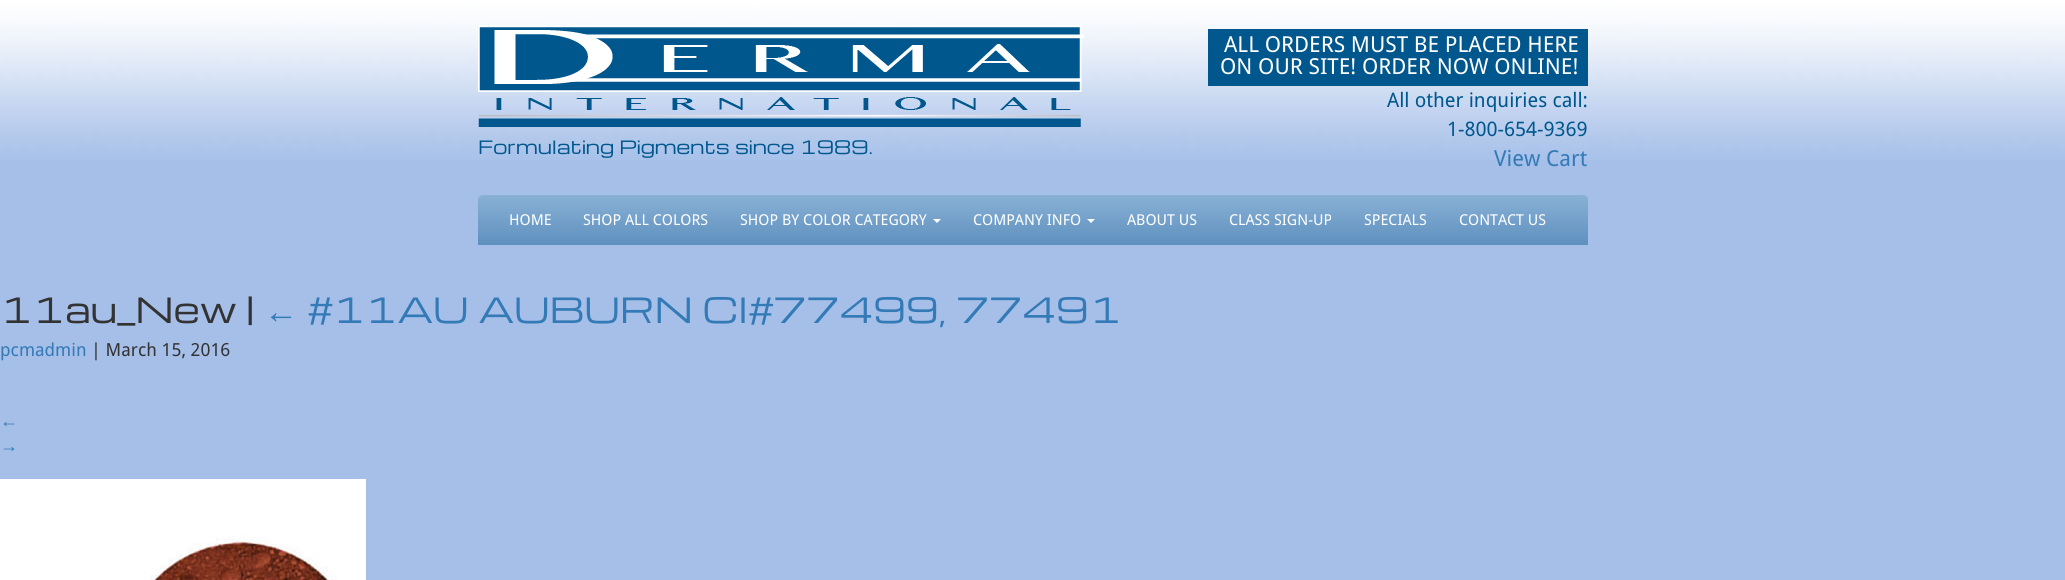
#include <cairo/cairo.h>
#include <math.h>
#include <stddef.h>

static cairo_t *cr;

static void use_color(int r, int g, int b) {
  cairo_set_source_rgb(cr, r / 255.0, g / 255.0, b / 255.0);
}

static void text(double x, double y, const char *s, const char *family, double size, int italic, int bold, int r, int g, int b) {
  cairo_select_font_face(cr, family, italic ? CAIRO_FONT_SLANT_ITALIC : CAIRO_FONT_SLANT_NORMAL,
    bold ? CAIRO_FONT_WEIGHT_BOLD : CAIRO_FONT_WEIGHT_NORMAL);
  cairo_set_font_size(cr, size);
  use_color(r, g, b);
  cairo_move_to(cr, x, y);
  cairo_show_text(cr, s);
}

static void box(double x, double y, double w, double h, int r, int g, int b) {
  use_color(r, g, b);
  cairo_rectangle(cr, x, y, w, h);
  cairo_fill(cr);
}

static void picture(const char *path, double x, double y, double w, double h) {
  cairo_surface_t *image = cairo_image_surface_create_from_png(path);
  cairo_save(cr);
  cairo_set_source_surface(cr, image, x, y);
  cairo_rectangle(cr, x, y, w, h);
  cairo_fill(cr);
  cairo_restore(cr);
  cairo_surface_destroy(image);
}

static void draw(void) {
  cairo_pattern_t *gradient;
  use_color(165, 191, 232);
  cairo_paint(cr);
  picture("img_01.png", 0, 0, 2065, 160);
  picture("img_02.png", 478, 25, 606, 102);
  box(1208, 29, 380, 57, 0, 87, 141);
  gradient = cairo_pattern_create_linear(1033, 195, 1033, 245);
  cairo_pattern_add_color_stop_rgba(gradient, 0, 0.537, 0.694, 0.839, 1);
  cairo_pattern_add_color_stop_rgba(gradient, 1, 0.369, 0.565, 0.745, 1);
  cairo_set_source(cr, gradient);
  cairo_pattern_destroy(gradient);
  cairo_new_path(cr);
  cairo_move_to(cr, 483, 195);
  cairo_line_to(cr, 1583, 195);
  cairo_curve_to(cr, 1586, 195, 1588, 197, 1588, 200);
  cairo_line_to(cr, 1588, 245);
  cairo_line_to(cr, 478, 245);
  cairo_line_to(cr, 478, 200);
  cairo_curve_to(cr, 478, 197, 480, 195, 483, 195);
  cairo_close_path(cr);
  cairo_fill(cr);
  use_color(255, 255, 255);
  cairo_new_path(cr);
  cairo_move_to(cr, 933, 219);
  cairo_line_to(cr, 941, 219);
  cairo_line_to(cr, 937, 223);
  cairo_close_path(cr);
  cairo_fill(cr);
  cairo_new_path(cr);
  cairo_move_to(cr, 1087, 219);
  cairo_line_to(cr, 1095, 219);
  cairo_line_to(cr, 1091, 223);
  cairo_close_path(cr);
  cairo_fill(cr);
  picture("img_03.png", 0, 479, 366, 101);
  text(478, 154, "Formulating Pigments since 1989.", "Michroma", 18, 0, 0, 0, 87, 141);
  text(1224, 52, "ALL ORDERS MUST BE PLACED HERE", "Droid Sans", 22, 0, 0, 255, 255, 255);
  text(1220, 74, "ON OUR SITE! ORDER NOW ONLINE!", "Droid Sans", 22, 0, 0, 255, 255, 255);
  text(1387, 107, "All other inquiries call:", "Droid Sans", 20, 0, 0, 0, 87, 141);
  text(1447, 136, "1-800-654-9369", "Droid Sans", 20, 0, 0, 0, 87, 141);
  text(1494, 166, "View Cart", "Droid Sans", 22, 0, 0, 51, 122, 183);
  text(509, 225, "HOME", "Droid Sans", 15, 0, 0, 255, 255, 255);
  text(583, 225, "SHOP ALL COLORS", "Droid Sans", 15, 0, 0, 255, 255, 255);
  text(740, 225, "SHOP BY COLOR CATEGORY", "Droid Sans", 15, 0, 0, 255, 255, 255);
  text(973, 225, "COMPANY INFO", "Droid Sans", 15, 0, 0, 255, 255, 255);
  text(1127, 225, "ABOUT US", "Droid Sans", 15, 0, 0, 255, 255, 255);
  text(1229, 225, "CLASS SIGN-UP", "Droid Sans", 15, 0, 0, 255, 255, 255);
  text(1364, 225, "SPECIALS", "Droid Sans", 15, 0, 0, 255, 255, 255);
  text(1459, 225, "CONTACT US", "Droid Sans", 15, 0, 0, 255, 255, 255);
  text(0, 323, "11au_New |", "Michroma", 34, 0, 0, 51, 51, 51);
  text(264, 323, "←", "Liberation Sans", 34, 0, 0, 51, 122, 183);
  text(307, 323, "#11AU AUBURN CI#77499, 77491", "Michroma", 34, 0, 0, 51, 122, 183);
  text(0, 356, "pcmadmin", "Droid Sans", 18, 0, 0, 51, 122, 183);
  text(91, 356, "| March 15, 2016", "Droid Sans", 18, 0, 0, 51, 51, 51);
  text(0, 427, "←", "Liberation Sans", 18, 0, 0, 51, 122, 183);
  text(0, 452, "→", "Liberation Sans", 18, 0, 0, 51, 122, 183);
}

int main(void) {
  cairo_surface_t *surface = cairo_image_surface_create(CAIRO_FORMAT_RGB24, 2065, 580);
  cr = cairo_create(surface);
  cairo_font_options_t *options = cairo_font_options_create();
  cairo_font_options_set_hint_metrics(options, CAIRO_HINT_METRICS_OFF);
  cairo_font_options_set_hint_style(options, CAIRO_HINT_STYLE_NONE);
  cairo_set_font_options(cr, options);
  cairo_set_miter_limit(cr, 4);
  draw();
  cairo_surface_write_to_png(surface, "out.png");
  cairo_font_options_destroy(options);
  cairo_destroy(cr);
  cairo_surface_destroy(surface);
  return 0;
}
